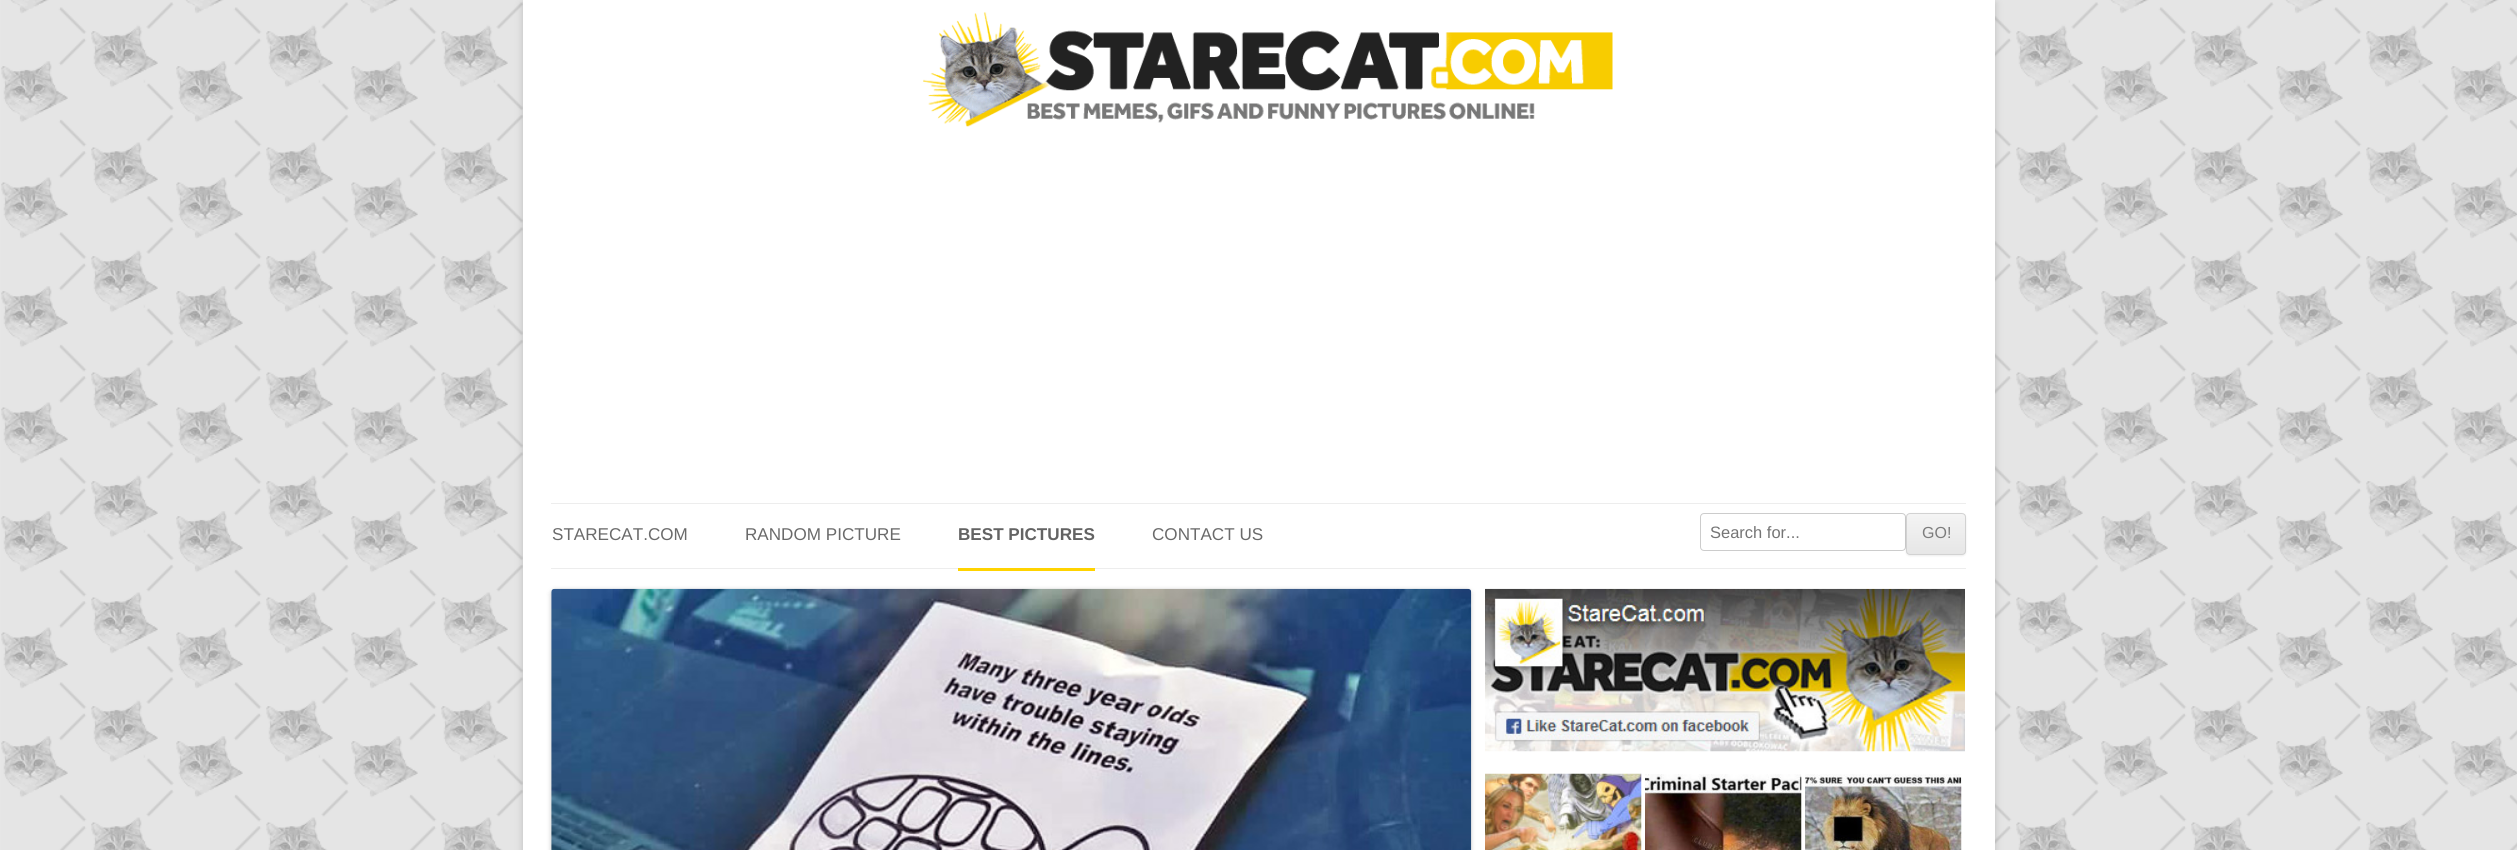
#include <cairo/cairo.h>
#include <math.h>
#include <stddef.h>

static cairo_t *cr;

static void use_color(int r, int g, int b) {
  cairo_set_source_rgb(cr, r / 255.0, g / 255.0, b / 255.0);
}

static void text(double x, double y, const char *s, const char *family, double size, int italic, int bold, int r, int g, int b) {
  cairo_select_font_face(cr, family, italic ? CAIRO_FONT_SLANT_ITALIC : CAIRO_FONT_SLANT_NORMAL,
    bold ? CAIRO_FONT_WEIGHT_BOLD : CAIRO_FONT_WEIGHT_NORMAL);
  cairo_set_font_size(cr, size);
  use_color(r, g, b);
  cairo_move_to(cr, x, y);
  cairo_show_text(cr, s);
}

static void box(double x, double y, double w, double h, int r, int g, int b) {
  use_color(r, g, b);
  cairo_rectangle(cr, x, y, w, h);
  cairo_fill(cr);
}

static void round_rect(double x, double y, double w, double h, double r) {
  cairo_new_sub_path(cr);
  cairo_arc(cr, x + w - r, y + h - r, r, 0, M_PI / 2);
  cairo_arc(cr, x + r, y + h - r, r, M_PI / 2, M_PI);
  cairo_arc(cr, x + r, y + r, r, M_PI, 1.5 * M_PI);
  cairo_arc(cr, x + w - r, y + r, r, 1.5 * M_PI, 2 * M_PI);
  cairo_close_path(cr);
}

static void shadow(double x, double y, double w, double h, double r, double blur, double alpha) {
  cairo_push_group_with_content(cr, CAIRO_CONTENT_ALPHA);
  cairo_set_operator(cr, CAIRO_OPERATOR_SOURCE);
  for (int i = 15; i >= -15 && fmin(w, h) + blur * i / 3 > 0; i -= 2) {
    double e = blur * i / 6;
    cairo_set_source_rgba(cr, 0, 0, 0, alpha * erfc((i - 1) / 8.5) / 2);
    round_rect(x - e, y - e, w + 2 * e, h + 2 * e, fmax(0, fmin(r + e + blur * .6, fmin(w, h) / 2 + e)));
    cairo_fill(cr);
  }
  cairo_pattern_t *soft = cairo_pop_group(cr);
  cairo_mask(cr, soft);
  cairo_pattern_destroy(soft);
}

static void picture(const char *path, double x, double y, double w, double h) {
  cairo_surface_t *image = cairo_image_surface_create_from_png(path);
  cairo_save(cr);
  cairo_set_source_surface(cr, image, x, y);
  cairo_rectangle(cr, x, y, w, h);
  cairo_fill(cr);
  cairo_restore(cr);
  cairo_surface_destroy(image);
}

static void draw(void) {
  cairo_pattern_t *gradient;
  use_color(230, 230, 230);
  cairo_paint(cr);
  picture("img_01.png", 1, 0, 2516, 850);
  use_color(100, 100, 100);
  shadow(523, 3, 1472, 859, 0, 4, 0.3);
  box(523, 0, 1472, 850, 255, 255, 255);
  picture("img_02.png", 923, 12, 690, 115);
  box(551, 503, 1415, 1, 237, 237, 237);
  box(551, 568, 1415, 1, 237, 237, 237);
  box(958, 568, 137, 3, 255, 211, 0);
  round_rect(1700.5, 513.5, 205, 37, 3.5);
  use_color(204, 204, 204);
  cairo_set_line_width(cr, 1);
  cairo_stroke(cr);
  use_color(64, 64, 64);
  shadow(1906, 514, 60, 42, 4, 1, 0.1);
  cairo_save(cr);
  round_rect(1906, 513, 60, 42, 4);
  cairo_clip(cr);
  gradient = cairo_pattern_create_linear(1936, 514, 1936, 554);
  cairo_pattern_add_color_stop_rgba(gradient, 0, 0.957, 0.957, 0.957, 1);
  cairo_pattern_add_color_stop_rgba(gradient, 1, 0.902, 0.902, 0.902, 1);
  cairo_set_source(cr, gradient);
  cairo_pattern_destroy(gradient);
  cairo_rectangle(cr, 1906, 514, 60, 40);
  cairo_fill(cr);
  cairo_restore(cr);
  round_rect(1906.5, 513.5, 59, 41, 3.5);
  use_color(210, 210, 210);
  cairo_stroke(cr);
  use_color(0, 0, 0);
  shadow(551, 590, 920, 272, 4, 2.5, 0.2);
  picture("img_03.png", 551, 588, 921, 262);
  picture("img_04.png", 1485, 588, 480, 164);
  picture("img_05.png", 1485, 773, 157, 77);
  picture("img_06.png", 1645, 774, 157, 76);
  picture("img_07.png", 1805, 774, 157, 76);
  text(552, 540, "STARECAT.COM", "Liberation Sans", 17.1, 0, 0, 106, 106, 106);
  text(745, 540, "RANDOM PICTURE", "Liberation Sans", 17.1, 0, 0, 106, 106, 106);
  text(958, 540, "BEST PICTURES", "Liberation Sans", 17.1, 0, 1, 99, 99, 99);
  text(1152, 540, "CONTACT US", "Liberation Sans", 17.1, 0, 0, 106, 106, 106);
  text(1710, 538, "Search for...", "Liberation Sans", 16.5, 0, 0, 117, 117, 117);
  text(1922, 538, "GO!", "Liberation Sans", 16, 0, 0, 124, 124, 124);
}

int main(void) {
  cairo_surface_t *surface = cairo_image_surface_create(CAIRO_FORMAT_RGB24, 2517, 850);
  cr = cairo_create(surface);
  cairo_font_options_t *options = cairo_font_options_create();
  cairo_font_options_set_hint_metrics(options, CAIRO_HINT_METRICS_OFF);
  cairo_font_options_set_hint_style(options, CAIRO_HINT_STYLE_NONE);
  cairo_set_font_options(cr, options);
  cairo_set_miter_limit(cr, 4);
  draw();
  cairo_surface_write_to_png(surface, "out.png");
  cairo_font_options_destroy(options);
  cairo_destroy(cr);
  cairo_surface_destroy(surface);
  return 0;
}
